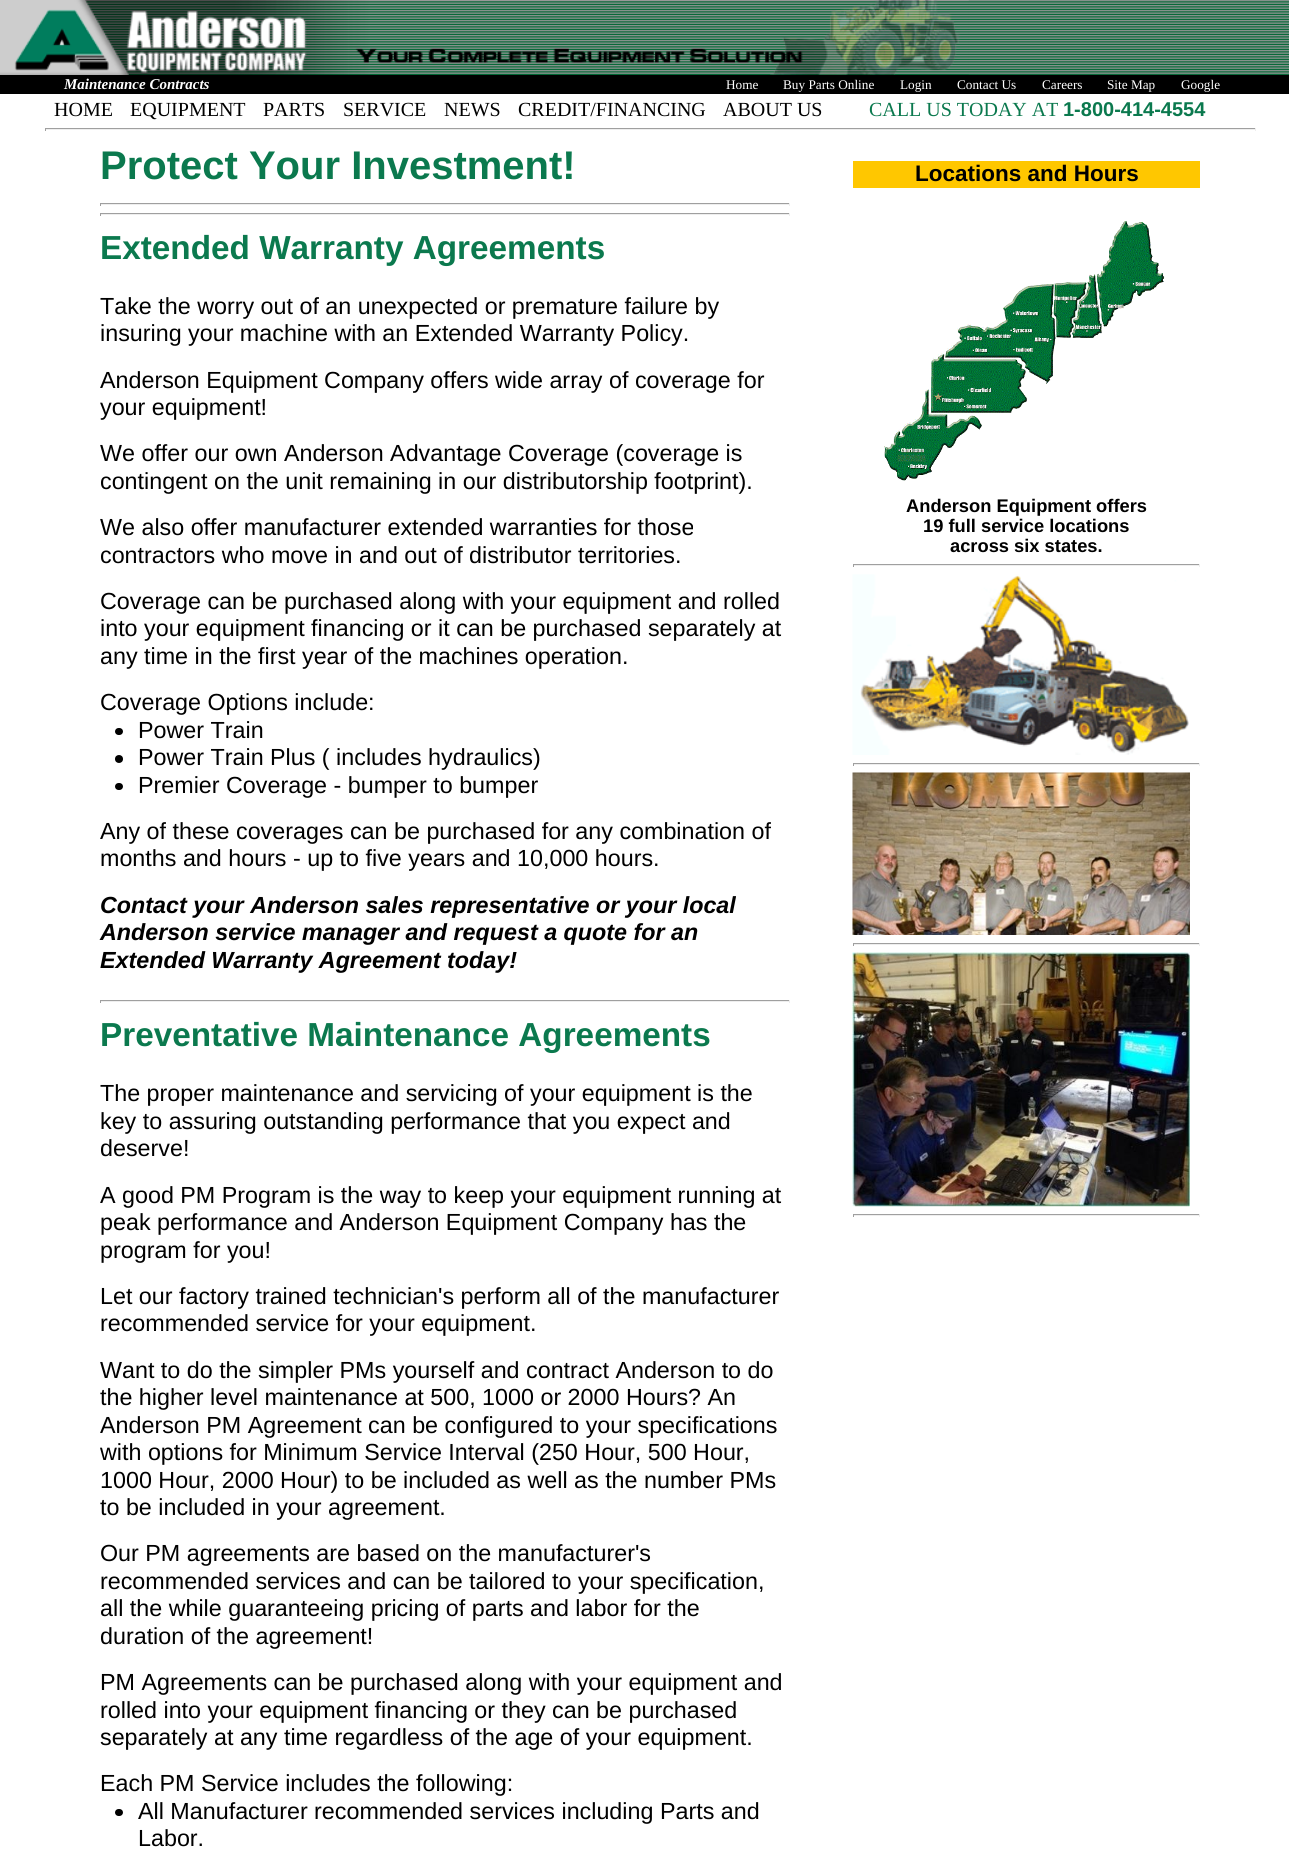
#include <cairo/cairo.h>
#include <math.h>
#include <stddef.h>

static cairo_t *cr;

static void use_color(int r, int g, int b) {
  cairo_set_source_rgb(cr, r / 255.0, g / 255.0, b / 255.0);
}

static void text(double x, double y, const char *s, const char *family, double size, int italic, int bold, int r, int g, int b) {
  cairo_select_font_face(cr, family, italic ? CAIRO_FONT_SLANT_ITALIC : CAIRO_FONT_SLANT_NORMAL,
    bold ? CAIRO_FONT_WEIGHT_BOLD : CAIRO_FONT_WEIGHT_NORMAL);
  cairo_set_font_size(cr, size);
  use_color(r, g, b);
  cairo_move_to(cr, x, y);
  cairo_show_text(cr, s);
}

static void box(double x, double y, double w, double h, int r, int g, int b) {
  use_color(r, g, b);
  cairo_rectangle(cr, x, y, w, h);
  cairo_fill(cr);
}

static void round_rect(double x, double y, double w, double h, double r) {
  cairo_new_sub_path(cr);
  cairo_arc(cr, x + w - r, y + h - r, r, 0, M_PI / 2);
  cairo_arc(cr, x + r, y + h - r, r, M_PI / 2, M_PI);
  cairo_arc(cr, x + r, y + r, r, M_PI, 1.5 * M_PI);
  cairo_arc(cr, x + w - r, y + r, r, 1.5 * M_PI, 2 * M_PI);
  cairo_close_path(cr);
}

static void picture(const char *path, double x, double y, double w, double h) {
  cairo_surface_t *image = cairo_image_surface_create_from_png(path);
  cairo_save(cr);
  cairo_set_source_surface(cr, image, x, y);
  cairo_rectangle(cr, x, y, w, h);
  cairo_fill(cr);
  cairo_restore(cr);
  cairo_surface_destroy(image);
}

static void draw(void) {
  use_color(255, 255, 255);
  cairo_paint(cr);
  picture("img_01.png", 348, 0, 941, 75);
  picture("img_02.png", 0, 0, 349, 75);
  picture("img_03.png", 349, 0, 620, 75);
  box(0, 75, 1289, 19, 0, 0, 0);
  box(45, 128, 1211, 1, 159, 159, 159);
  box(1255, 128, 1, 3, 238, 238, 238);
  box(45, 129, 1211, 1, 238, 238, 238);
  box(45, 128, 1, 3, 159, 159, 159);
  box(100, 203, 690, 1, 159, 159, 159);
  box(789, 203, 1, 3, 238, 238, 238);
  box(100, 204, 690, 1, 238, 238, 238);
  box(100, 203, 1, 3, 159, 159, 159);
  box(100, 213, 690, 1, 159, 159, 159);
  box(789, 213, 1, 3, 238, 238, 238);
  box(100, 214, 690, 1, 238, 238, 238);
  box(100, 213, 1, 3, 159, 159, 159);
  use_color(0, 0, 0);
  round_rect(115, 728, 8, 7, 3.5);
  cairo_fill(cr);
  cairo_arc(cr, 119, 759, 4, 0, 2 * M_PI);
  cairo_fill(cr);
  round_rect(115, 783, 8, 7, 3.5);
  cairo_fill(cr);
  box(100, 1000, 690, 1, 159, 159, 159);
  box(789, 1000, 1, 3, 238, 238, 238);
  box(100, 1001, 690, 1, 238, 238, 238);
  box(100, 1000, 1, 3, 159, 159, 159);
  use_color(0, 0, 0);
  round_rect(115, 1809, 8, 7, 3.5);
  cairo_fill(cr);
  box(853, 161, 347, 27, 255, 199, 0);
  picture("img_04.png", 884, 221, 281, 260);
  box(853, 564, 347, 1, 159, 159, 159);
  box(1199, 564, 1, 3, 238, 238, 238);
  box(853, 565, 347, 1, 238, 238, 238);
  box(853, 564, 1, 3, 159, 159, 159);
  picture("img_05.png", 852, 574, 337, 181);
  box(853, 763, 347, 1, 159, 159, 159);
  box(1199, 763, 1, 3, 238, 238, 238);
  box(853, 764, 347, 1, 238, 238, 238);
  box(853, 763, 1, 3, 159, 159, 159);
  picture("img_06.png", 852, 772, 338, 163);
  box(853, 943, 347, 1, 159, 159, 159);
  box(1199, 943, 1, 3, 238, 238, 238);
  box(853, 944, 347, 1, 238, 238, 238);
  box(853, 943, 1, 3, 159, 159, 159);
  picture("img_07.png", 852, 952, 338, 255);
  box(853, 1214, 347, 1, 159, 159, 159);
  box(1199, 1214, 1, 3, 238, 238, 238);
  box(853, 1215, 347, 1, 238, 238, 238);
  box(853, 1214, 1, 3, 159, 159, 159);
  text(64, 89, "Maintenance Contracts", "Liberation Serif", 15, 1, 1, 255, 255, 255);
  text(726, 89, "Home", "Liberation Serif", 13.25, 0, 0, 255, 255, 255);
  text(783, 89, "Buy Parts Online", "Liberation Serif", 13.25, 0, 0, 255, 255, 255);
  text(900, 89, "Login", "Liberation Serif", 13.25, 0, 0, 255, 255, 255);
  text(957, 89, "Contact Us", "Liberation Serif", 13.25, 0, 0, 255, 255, 255);
  text(1042, 89, "Careers", "Liberation Serif", 13.25, 0, 0, 255, 255, 255);
  text(1107, 89, "Site Map", "Liberation Serif", 13.25, 0, 0, 255, 255, 255);
  text(1181, 89, "Google", "Liberation Serif", 13.25, 0, 0, 255, 255, 255);
  text(54, 116, "HOME", "Liberation Serif", 20, 0, 0, 0, 0, 0);
  text(130, 116, "EQUIPMENT", "Liberation Serif", 20, 0, 0, 0, 0, 0);
  text(263, 116, "PARTS", "Liberation Serif", 20, 0, 0, 0, 0, 0);
  text(343, 116, "SERVICE", "Liberation Serif", 20, 0, 0, 0, 0, 0);
  text(444, 116, "NEWS", "Liberation Serif", 20, 0, 0, 0, 0, 0);
  text(518, 116, "CREDIT/FINANCING", "Liberation Serif", 20, 0, 0, 0, 0, 0);
  text(723, 116, "ABOUT US", "Liberation Serif", 20, 0, 0, 0, 0, 0);
  text(869, 116, "CALL US TODAY AT", "Liberation Serif", 20, 0, 0, 11, 121, 78);
  text(1063, 116, "1-800-414-4554", "Liberation Sans", 20, 0, 1, 11, 121, 78);
  text(100, 179, "Protect Your Investment!", "Liberation Sans", 40, 0, 1, 11, 121, 78);
  text(100, 259, "Extended Warranty Agreements", "Liberation Sans", 33.3, 0, 1, 11, 121, 78);
  text(100, 314, "Take the worry out of an unexpected or premature failure by", "Liberation Sans", 23.3, 0, 0, 0, 0, 0);
  text(100, 341, "insuring your machine with an Extended Warranty Policy.", "Liberation Sans", 23.3, 0, 0, 0, 0, 0);
  text(100, 388, "Anderson Equipment Company offers wide array of coverage for", "Liberation Sans", 23.3, 0, 0, 0, 0, 0);
  text(100, 415, "your equipment!", "Liberation Sans", 23.3, 0, 0, 0, 0, 0);
  text(100, 461, "We offer our own Anderson Advantage Coverage (coverage is", "Liberation Sans", 23.3, 0, 0, 0, 0, 0);
  text(100, 489, "contingent on the unit remaining in our distributorship footprint).", "Liberation Sans", 23.3, 0, 0, 0, 0, 0);
  text(100, 535, "We also offer manufacturer extended warranties for those", "Liberation Sans", 23.3, 0, 0, 0, 0, 0);
  text(100, 563, "contractors who move in and out of distributor territories.", "Liberation Sans", 23.3, 0, 0, 0, 0, 0);
  text(100, 609, "Coverage can be purchased along with your equipment and rolled", "Liberation Sans", 23.3, 0, 0, 0, 0, 0);
  text(100, 636, "into your equipment financing or it can be purchased separately at", "Liberation Sans", 23.3, 0, 0, 0, 0, 0);
  text(100, 664, "any time in the first year of the machines operation.", "Liberation Sans", 23.3, 0, 0, 0, 0, 0);
  text(100, 710, "Coverage Options include:", "Liberation Sans", 23.3, 0, 0, 0, 0, 0);
  text(138, 738, "Power Train", "Liberation Sans", 23.3, 0, 0, 0, 0, 0);
  text(138, 765, "Power Train Plus ( includes hydraulics)", "Liberation Sans", 23.3, 0, 0, 0, 0, 0);
  text(138, 793, "Premier Coverage - bumper to bumper", "Liberation Sans", 23.3, 0, 0, 0, 0, 0);
  text(100, 839, "Any of these coverages can be purchased for any combination of", "Liberation Sans", 23.3, 0, 0, 0, 0, 0);
  text(100, 866, "months and hours - up to five years and 10,000 hours.", "Liberation Sans", 23.3, 0, 0, 0, 0, 0);
  text(100, 913, "Contact your Anderson sales representative or your local", "Liberation Sans", 23.3, 1, 1, 0, 0, 0);
  text(100, 940, "Anderson service manager and request a quote for an", "Liberation Sans", 23.3, 1, 1, 0, 0, 0);
  text(100, 968, "Extended Warranty Agreement today!", "Liberation Sans", 23.3, 1, 1, 0, 0, 0);
  text(100, 1046, "Preventative Maintenance Agreements", "Liberation Sans", 33.3, 0, 1, 11, 121, 78);
  text(100, 1101, "The proper maintenance and servicing of your equipment is the", "Liberation Sans", 23.3, 0, 0, 0, 0, 0);
  text(100, 1129, "key to assuring outstanding performance that you expect and", "Liberation Sans", 23.3, 0, 0, 0, 0, 0);
  text(100, 1156, "deserve!", "Liberation Sans", 23.3, 0, 0, 0, 0, 0);
  text(100, 1203, "A good PM Program is the way to keep your equipment running at", "Liberation Sans", 23.3, 0, 0, 0, 0, 0);
  text(100, 1230, "peak performance and Anderson Equipment Company has the", "Liberation Sans", 23.3, 0, 0, 0, 0, 0);
  text(100, 1258, "program for you!", "Liberation Sans", 23.3, 0, 0, 0, 0, 0);
  text(100, 1304, "Let our factory trained technician's perform all of the manufacturer", "Liberation Sans", 23.3, 0, 0, 0, 0, 0);
  text(100, 1331, "recommended service for your equipment.", "Liberation Sans", 23.3, 0, 0, 0, 0, 0);
  text(100, 1378, "Want to do the simpler PMs yourself and contract Anderson to do", "Liberation Sans", 23.3, 0, 0, 0, 0, 0);
  text(100, 1405, "the higher level maintenance at 500, 1000 or 2000 Hours? An", "Liberation Sans", 23.3, 0, 0, 0, 0, 0);
  text(100, 1433, "Anderson PM Agreement can be configured to your specifications", "Liberation Sans", 23.3, 0, 0, 0, 0, 0);
  text(100, 1460, "with options for Minimum Service Interval (250 Hour, 500 Hour,", "Liberation Sans", 23.3, 0, 0, 0, 0, 0);
  text(100, 1488, "1000 Hour, 2000 Hour) to be included as well as the number PMs", "Liberation Sans", 23.3, 0, 0, 0, 0, 0);
  text(100, 1515, "to be included in your agreement.", "Liberation Sans", 23.3, 0, 0, 0, 0, 0);
  text(100, 1561, "Our PM agreements are based on the manufacturer's", "Liberation Sans", 23.3, 0, 0, 0, 0, 0);
  text(100, 1589, "recommended services and can be tailored to your specification,", "Liberation Sans", 23.3, 0, 0, 0, 0, 0);
  text(100, 1616, "all the while guaranteeing pricing of parts and labor for the", "Liberation Sans", 23.3, 0, 0, 0, 0, 0);
  text(100, 1644, "duration of the agreement!", "Liberation Sans", 23.3, 0, 0, 0, 0, 0);
  text(100, 1690, "PM Agreements can be purchased along with your equipment and", "Liberation Sans", 23.3, 0, 0, 0, 0, 0);
  text(100, 1718, "rolled into your equipment financing or they can be purchased", "Liberation Sans", 23.3, 0, 0, 0, 0, 0);
  text(100, 1745, "separately at any time regardless of the age of your equipment.", "Liberation Sans", 23.3, 0, 0, 0, 0, 0);
  text(100, 1791, "Each PM Service includes the following:", "Liberation Sans", 23.3, 0, 0, 0, 0, 0);
  text(138, 1819, "All Manufacturer recommended services including Parts and", "Liberation Sans", 23.3, 0, 0, 0, 0, 0);
  text(138, 1846, "Labor.", "Liberation Sans", 23.3, 0, 0, 0, 0, 0);
  text(915, 181, "Locations and Hours", "Liberation Sans", 22.5, 0, 1, 0, 0, 0);
  text(906, 512, "Anderson Equipment offers", "Liberation Sans", 18.3, 0, 1, 0, 0, 0);
  text(923, 532, "19 full service locations", "Liberation Sans", 18.3, 0, 1, 0, 0, 0);
  text(950, 552, "across six states.", "Liberation Sans", 18.3, 0, 1, 0, 0, 0);
}

int main(void) {
  cairo_surface_t *surface = cairo_image_surface_create(CAIRO_FORMAT_RGB24, 1289, 1853);
  cr = cairo_create(surface);
  cairo_font_options_t *options = cairo_font_options_create();
  cairo_font_options_set_hint_metrics(options, CAIRO_HINT_METRICS_OFF);
  cairo_font_options_set_hint_style(options, CAIRO_HINT_STYLE_NONE);
  cairo_set_font_options(cr, options);
  cairo_set_miter_limit(cr, 4);
  draw();
  cairo_surface_write_to_png(surface, "out.png");
  cairo_font_options_destroy(options);
  cairo_destroy(cr);
  cairo_surface_destroy(surface);
  return 0;
}
